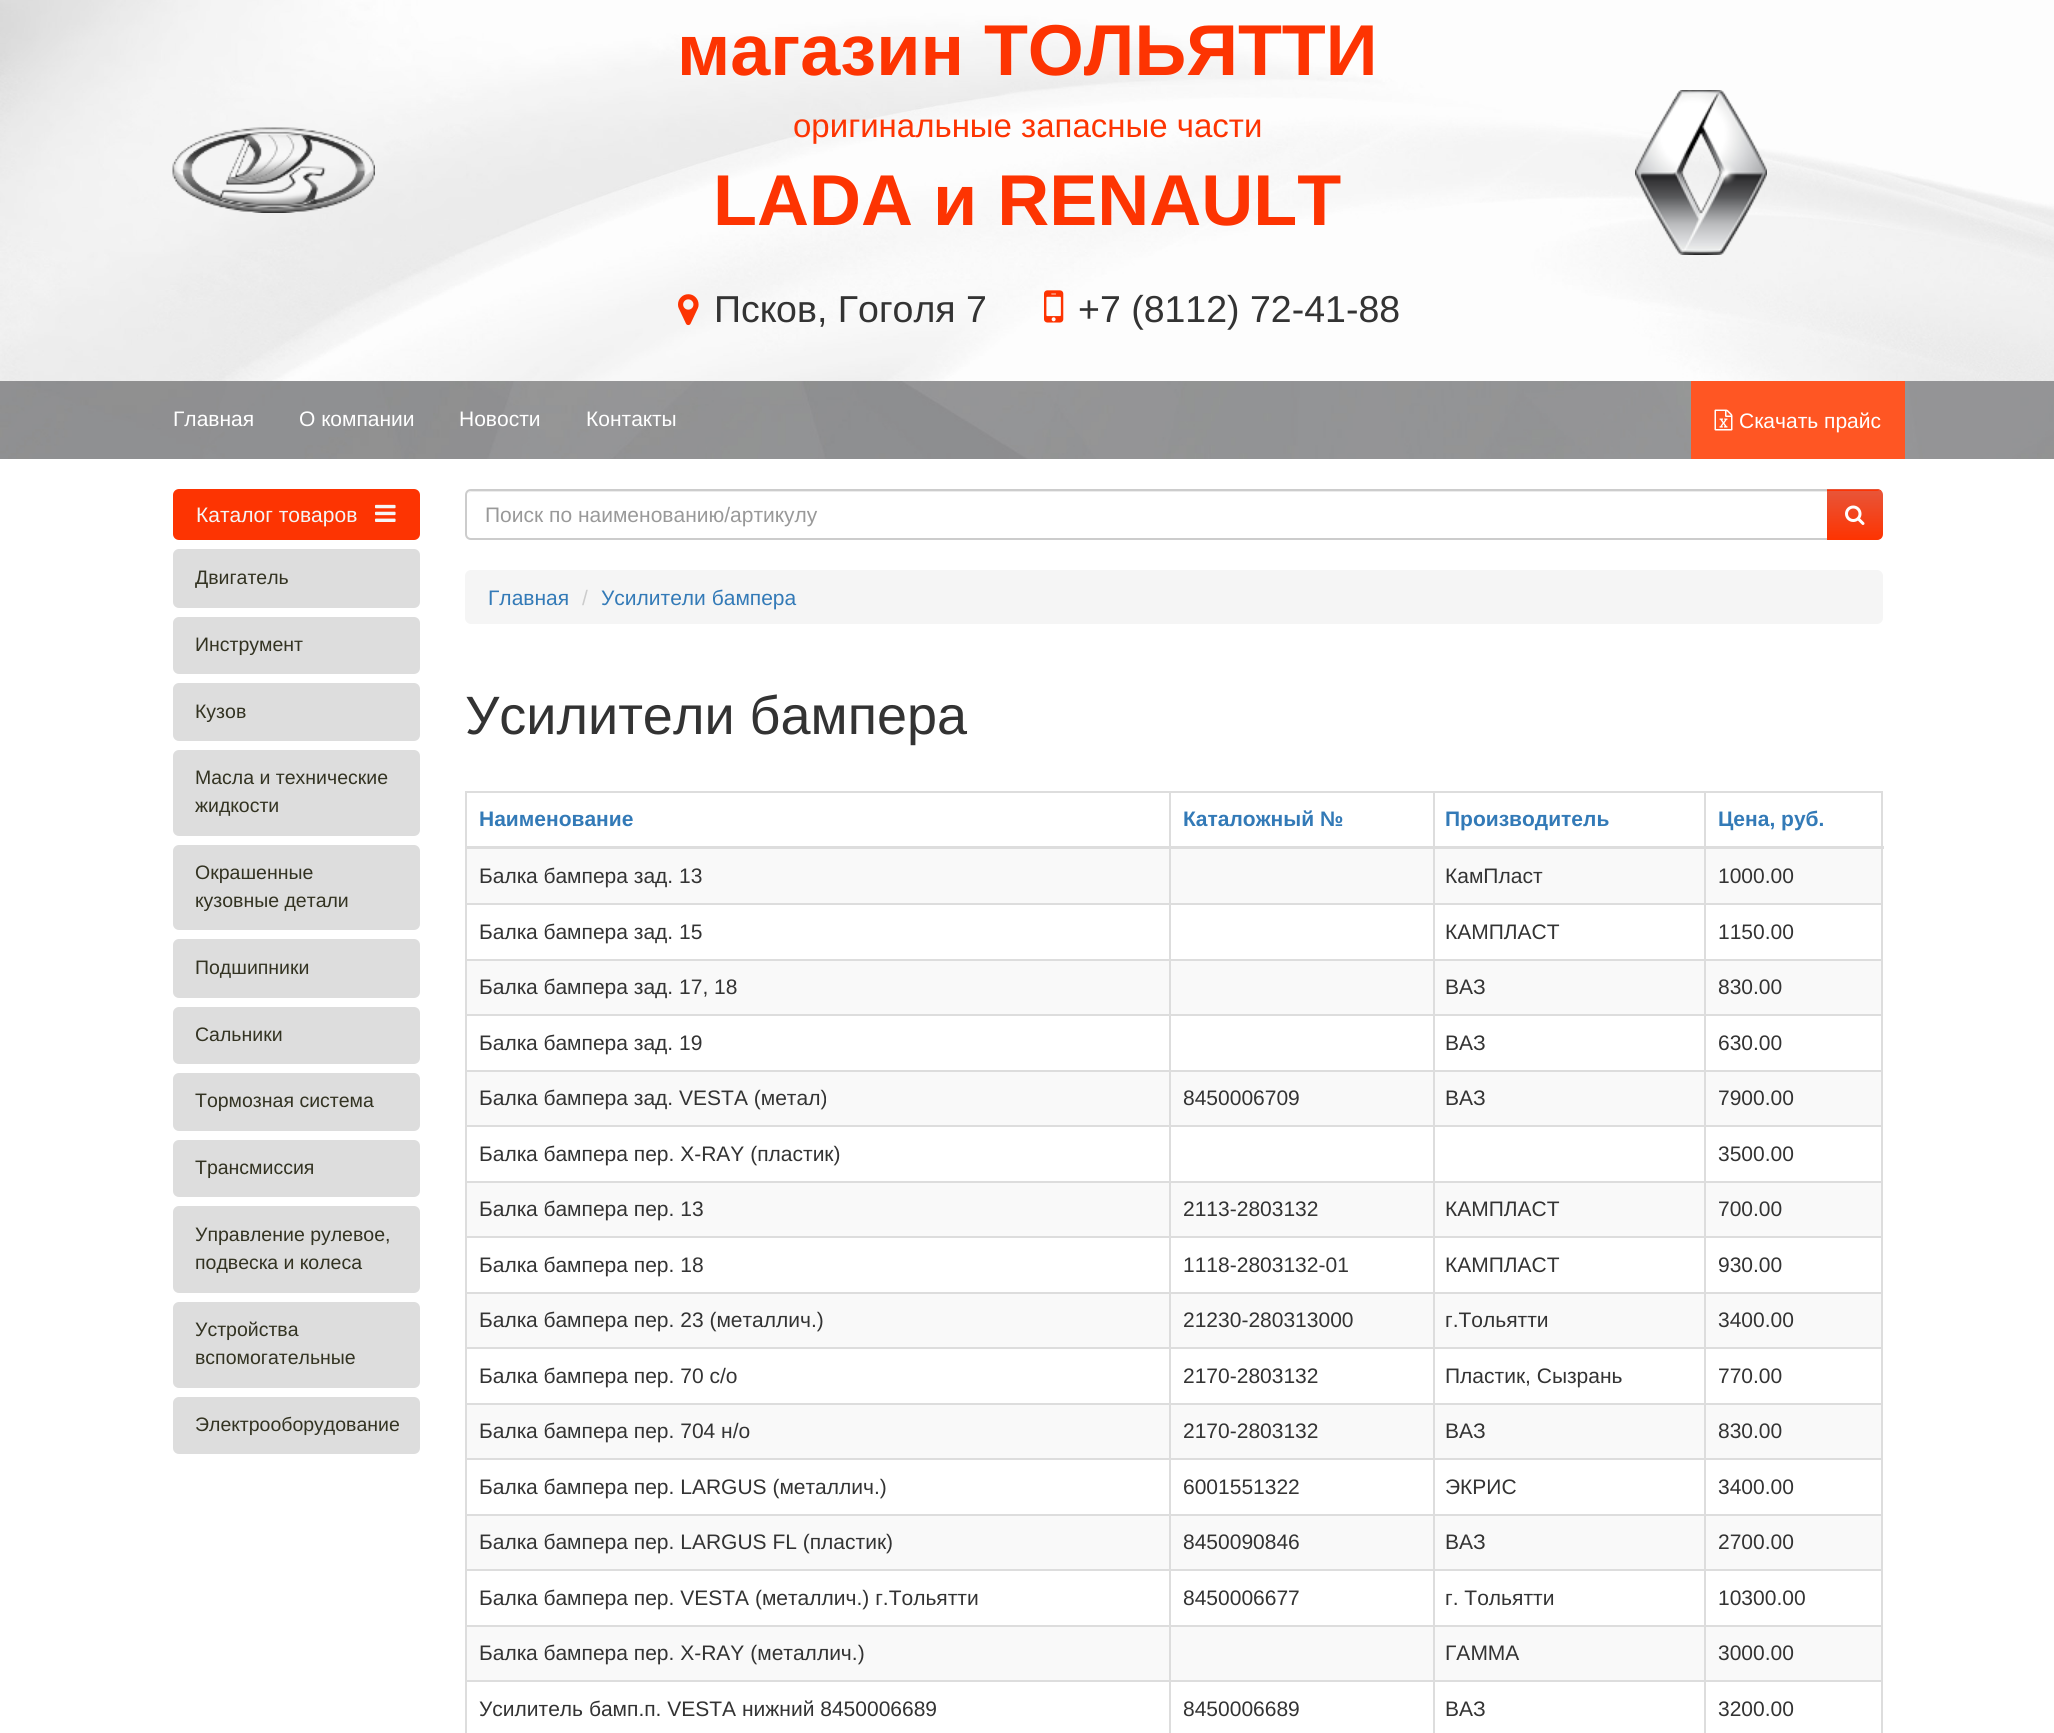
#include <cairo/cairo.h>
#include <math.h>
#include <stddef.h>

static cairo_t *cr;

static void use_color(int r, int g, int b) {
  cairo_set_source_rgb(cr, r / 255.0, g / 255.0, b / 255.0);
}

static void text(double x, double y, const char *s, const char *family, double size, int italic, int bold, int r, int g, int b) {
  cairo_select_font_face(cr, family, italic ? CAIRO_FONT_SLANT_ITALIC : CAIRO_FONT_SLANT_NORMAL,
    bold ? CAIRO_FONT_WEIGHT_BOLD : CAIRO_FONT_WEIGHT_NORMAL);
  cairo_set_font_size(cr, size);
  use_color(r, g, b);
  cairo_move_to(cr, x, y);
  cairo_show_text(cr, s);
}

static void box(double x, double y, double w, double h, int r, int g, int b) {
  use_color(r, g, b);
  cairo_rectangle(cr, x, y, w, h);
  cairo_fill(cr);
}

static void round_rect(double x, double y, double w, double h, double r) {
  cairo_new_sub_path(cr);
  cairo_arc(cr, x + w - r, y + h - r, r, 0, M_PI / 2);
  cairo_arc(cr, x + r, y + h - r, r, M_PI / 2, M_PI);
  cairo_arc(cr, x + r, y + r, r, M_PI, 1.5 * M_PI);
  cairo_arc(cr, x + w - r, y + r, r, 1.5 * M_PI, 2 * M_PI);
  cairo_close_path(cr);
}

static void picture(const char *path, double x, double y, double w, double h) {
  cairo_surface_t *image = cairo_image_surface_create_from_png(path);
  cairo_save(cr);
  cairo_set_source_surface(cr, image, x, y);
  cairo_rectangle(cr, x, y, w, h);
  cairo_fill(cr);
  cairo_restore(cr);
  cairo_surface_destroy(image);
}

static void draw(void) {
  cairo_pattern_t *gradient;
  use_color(255, 255, 255);
  cairo_paint(cr);
  picture("img_01.png", 0, 0, 2054, 381);
  picture("img_02.png", 172, 127, 203, 86);
  picture("img_03.png", 678, 294, 21, 32);
  picture("img_04.png", 1044, 290, 20, 33);
  picture("img_05.png", 1635, 90, 132, 165);
  picture("img_06.png", 0, 381, 2054, 78);
  box(1691, 381, 214, 78, 255, 86, 35);
  picture("img_07.png", 1714, 409, 19, 22);
  use_color(253, 52, 2);
  round_rect(174, 490, 245, 49, 5);
  cairo_fill_preserve(cr);
  cairo_stroke(cr);
  picture("img_08.png", 375, 504, 21, 18);
  use_color(221, 221, 221);
  round_rect(173, 549, 247, 59, 6);
  cairo_fill(cr);
  round_rect(173, 617, 247, 57, 6);
  cairo_fill(cr);
  round_rect(173, 683, 247, 58, 6);
  cairo_fill(cr);
  round_rect(173, 750, 247, 86, 6);
  cairo_fill(cr);
  round_rect(173, 845, 247, 85, 6);
  cairo_fill(cr);
  round_rect(173, 939, 247, 59, 6);
  cairo_fill(cr);
  round_rect(173, 1007, 247, 57, 6);
  cairo_fill(cr);
  round_rect(173, 1073, 247, 58, 6);
  cairo_fill(cr);
  round_rect(173, 1140, 247, 57, 6);
  cairo_fill(cr);
  round_rect(173, 1206, 247, 87, 6);
  cairo_fill(cr);
  round_rect(173, 1302, 247, 86, 6);
  cairo_fill(cr);
  round_rect(173, 1397, 247, 57, 6);
  cairo_fill(cr);
  use_color(236, 236, 236);
  cairo_new_path(cr);
  cairo_move_to(cr, 471, 492);
  cairo_line_to(cr, 1827, 492);
  cairo_line_to(cr, 1827, 491);
  cairo_line_to(cr, 472, 491);
  cairo_curve_to(cr, 470, 491, 469, 492, 468, 493);
  cairo_close_path(cr);
  cairo_fill(cr);
  cairo_new_path(cr);
  cairo_move_to(cr, 471, 490);
  cairo_line_to(cr, 1828, 490);
  cairo_line_to(cr, 1828, 539);
  cairo_line_to(cr, 471, 539);
  cairo_curve_to(cr, 468, 539, 466, 537, 466, 534);
  cairo_line_to(cr, 466, 495);
  cairo_curve_to(cr, 466, 492, 468, 490, 471, 490);
  cairo_close_path(cr);
  use_color(204, 204, 204);
  cairo_stroke(cr);
  cairo_save(cr);
  cairo_new_path(cr);
  cairo_move_to(cr, 1827, 489);
  cairo_line_to(cr, 1877, 489);
  cairo_curve_to(cr, 1880.5, 489, 1883, 491.5, 1883, 495);
  cairo_line_to(cr, 1883, 534);
  cairo_curve_to(cr, 1883, 537.5, 1880.5, 540, 1877, 540);
  cairo_line_to(cr, 1827, 540);
  cairo_close_path(cr);
  cairo_clip(cr);
  gradient = cairo_pattern_create_linear(1855, 443, 1855, 491);
  cairo_pattern_add_color_stop_rgba(gradient, 0, 0.91, 0.333, 0.22, 1);
  cairo_pattern_add_color_stop_rgba(gradient, 1, 0.992, 0.204, 0.008, 1);
  cairo_set_source(cr, gradient);
  cairo_pattern_destroy(gradient);
  cairo_rectangle(cr, 1827, 489, 56, 2);
  cairo_fill(cr);
  gradient = cairo_pattern_create_linear(1855, 491, 1855, 539);
  cairo_pattern_add_color_stop_rgba(gradient, 0, 0.91, 0.333, 0.22, 1);
  cairo_pattern_add_color_stop_rgba(gradient, 1, 0.992, 0.204, 0.008, 1);
  cairo_set_source(cr, gradient);
  cairo_pattern_destroy(gradient);
  cairo_rectangle(cr, 1827, 491, 56, 48);
  cairo_fill(cr);
  gradient = cairo_pattern_create_linear(1855, 539, 1855, 587);
  cairo_pattern_add_color_stop_rgba(gradient, 0, 0.91, 0.333, 0.22, 1);
  cairo_pattern_add_color_stop_rgba(gradient, 1, 0.992, 0.204, 0.008, 1);
  cairo_set_source(cr, gradient);
  cairo_pattern_destroy(gradient);
  cairo_rectangle(cr, 1876, 539, 7, 1);
  cairo_fill(cr);
  cairo_restore(cr);
  use_color(232, 85, 56);
  cairo_new_path(cr);
  cairo_move_to(cr, 1827, 489);
  cairo_line_to(cr, 1827, 490);
  cairo_line_to(cr, 1876, 490);
  cairo_curve_to(cr, 1880, 490, 1882, 493, 1882, 495);
  cairo_curve_to(cr, 1882, 492, 1880, 489, 1876, 489);
  cairo_close_path(cr);
  cairo_fill(cr);
  use_color(253, 52, 2);
  cairo_new_path(cr);
  cairo_move_to(cr, 1876, 540);
  cairo_curve_to(cr, 1880, 540, 1882, 537, 1882, 534);
  cairo_curve_to(cr, 1882, 536, 1880, 538, 1876, 538);
  cairo_line_to(cr, 1827, 538);
  cairo_line_to(cr, 1827, 540);
  cairo_close_path(cr);
  cairo_fill(cr);
  picture("img_09.png", 1845, 505, 20, 20);
  use_color(245, 245, 245);
  round_rect(465, 570, 1418, 54, 6);
  cairo_fill(cr);
  box(465, 791, 1418, 2, 221, 221, 221);
  box(1881, 791, 2, 942, 221, 221, 221);
  box(465, 791, 2, 942, 221, 221, 221);
  box(467, 849, 1414, 54, 249, 249, 249);
  box(1704, 903, 179, 2, 221, 221, 221);
  box(1704, 959, 179, 2, 221, 221, 221);
  box(467, 961, 1414, 53, 249, 249, 249);
  box(1704, 1014, 179, 2, 221, 221, 221);
  box(1704, 1070, 179, 2, 221, 221, 221);
  box(467, 1072, 1414, 53, 249, 249, 249);
  box(1704, 1125, 179, 2, 221, 221, 221);
  box(1704, 1181, 179, 2, 221, 221, 221);
  box(467, 1183, 1414, 53, 249, 249, 249);
  box(1704, 1236, 179, 2, 221, 221, 221);
  box(1704, 1292, 179, 2, 221, 221, 221);
  box(467, 1294, 1414, 53, 249, 249, 249);
  box(1704, 1347, 179, 2, 221, 221, 221);
  box(1704, 1403, 179, 2, 221, 221, 221);
  box(467, 1405, 1414, 53, 249, 249, 249);
  box(1704, 1458, 179, 2, 221, 221, 221);
  box(1704, 1514, 179, 2, 221, 221, 221);
  box(467, 1516, 1414, 53, 249, 249, 249);
  box(1704, 1569, 179, 2, 221, 221, 221);
  box(1704, 1625, 179, 2, 221, 221, 221);
  box(467, 1627, 1414, 53, 249, 249, 249);
  box(1704, 1680, 179, 2, 221, 221, 221);
  box(1704, 1680, 2, 53, 221, 221, 221);
  box(1433, 1680, 273, 2, 221, 221, 221);
  box(1704, 1625, 2, 57, 221, 221, 221);
  box(1433, 1625, 273, 2, 221, 221, 221);
  box(1704, 1569, 2, 57, 221, 221, 221);
  box(1433, 1569, 273, 2, 221, 221, 221);
  box(1704, 1514, 2, 57, 221, 221, 221);
  box(1433, 1514, 273, 2, 221, 221, 221);
  box(1704, 1458, 2, 57, 221, 221, 221);
  box(1433, 1458, 273, 2, 221, 221, 221);
  box(1704, 1403, 2, 57, 221, 221, 221);
  box(1433, 1403, 273, 2, 221, 221, 221);
  box(1704, 1347, 2, 57, 221, 221, 221);
  box(1433, 1347, 273, 2, 221, 221, 221);
  box(1704, 1292, 2, 57, 221, 221, 221);
  box(1433, 1292, 273, 2, 221, 221, 221);
  box(1704, 1236, 2, 57, 221, 221, 221);
  box(1433, 1236, 273, 2, 221, 221, 221);
  box(1704, 1181, 2, 57, 221, 221, 221);
  box(1433, 1181, 273, 2, 221, 221, 221);
  box(1704, 1125, 2, 57, 221, 221, 221);
  box(1433, 1125, 273, 2, 221, 221, 221);
  box(1704, 1070, 2, 57, 221, 221, 221);
  box(1433, 1070, 273, 2, 221, 221, 221);
  box(1704, 1014, 2, 57, 221, 221, 221);
  box(1433, 1014, 273, 2, 221, 221, 221);
  box(1704, 959, 2, 57, 221, 221, 221);
  box(1433, 959, 273, 2, 221, 221, 221);
  box(1704, 903, 2, 57, 221, 221, 221);
  box(1433, 903, 273, 2, 221, 221, 221);
  box(1433, 1680, 2, 53, 221, 221, 221);
  box(1169, 1680, 265, 2, 221, 221, 221);
  box(1433, 1625, 2, 57, 221, 221, 221);
  box(1169, 1625, 265, 2, 221, 221, 221);
  box(1433, 1569, 2, 57, 221, 221, 221);
  box(1169, 1569, 265, 2, 221, 221, 221);
  box(1433, 1514, 2, 57, 221, 221, 221);
  box(1169, 1514, 265, 2, 221, 221, 221);
  box(1433, 1458, 2, 57, 221, 221, 221);
  box(1169, 1458, 265, 2, 221, 221, 221);
  box(1433, 1403, 2, 57, 221, 221, 221);
  box(1169, 1403, 265, 2, 221, 221, 221);
  box(1433, 1347, 2, 57, 221, 221, 221);
  box(1169, 1347, 265, 2, 221, 221, 221);
  box(1433, 1292, 2, 57, 221, 221, 221);
  box(1169, 1292, 265, 2, 221, 221, 221);
  box(1433, 1236, 2, 57, 221, 221, 221);
  box(1169, 1236, 265, 2, 221, 221, 221);
  box(1433, 1181, 2, 57, 221, 221, 221);
  box(1169, 1181, 265, 2, 221, 221, 221);
  box(1433, 1125, 2, 57, 221, 221, 221);
  box(1169, 1125, 265, 2, 221, 221, 221);
  box(1433, 1070, 2, 57, 221, 221, 221);
  box(1169, 1070, 265, 2, 221, 221, 221);
  box(1433, 1014, 2, 57, 221, 221, 221);
  box(1169, 1014, 265, 2, 221, 221, 221);
  box(1433, 959, 2, 57, 221, 221, 221);
  box(1169, 959, 265, 2, 221, 221, 221);
  box(1433, 903, 2, 57, 221, 221, 221);
  box(1169, 903, 265, 2, 221, 221, 221);
  box(1169, 1680, 2, 53, 221, 221, 221);
  box(465, 1680, 705, 2, 221, 221, 221);
  box(1169, 1625, 2, 57, 221, 221, 221);
  box(465, 1625, 705, 2, 221, 221, 221);
  box(1169, 1569, 2, 57, 221, 221, 221);
  box(465, 1569, 705, 2, 221, 221, 221);
  box(1169, 1514, 2, 57, 221, 221, 221);
  box(465, 1514, 705, 2, 221, 221, 221);
  box(1169, 1458, 2, 57, 221, 221, 221);
  box(465, 1458, 705, 2, 221, 221, 221);
  box(1169, 1403, 2, 57, 221, 221, 221);
  box(465, 1403, 705, 2, 221, 221, 221);
  box(1169, 1347, 2, 57, 221, 221, 221);
  box(465, 1347, 705, 2, 221, 221, 221);
  box(1169, 1292, 2, 57, 221, 221, 221);
  box(465, 1292, 705, 2, 221, 221, 221);
  box(1169, 1236, 2, 57, 221, 221, 221);
  box(465, 1236, 705, 2, 221, 221, 221);
  box(1169, 1181, 2, 57, 221, 221, 221);
  box(465, 1181, 705, 2, 221, 221, 221);
  box(1169, 1125, 2, 57, 221, 221, 221);
  box(465, 1125, 705, 2, 221, 221, 221);
  box(1169, 1070, 2, 57, 221, 221, 221);
  box(465, 1070, 705, 2, 221, 221, 221);
  box(1169, 1014, 2, 57, 221, 221, 221);
  box(465, 1014, 705, 2, 221, 221, 221);
  box(1169, 959, 2, 57, 221, 221, 221);
  box(465, 959, 705, 2, 221, 221, 221);
  box(1169, 903, 2, 57, 221, 221, 221);
  box(465, 903, 705, 2, 221, 221, 221);
  box(1169, 791, 2, 114, 221, 221, 221);
  box(1433, 791, 2, 114, 221, 221, 221);
  box(1704, 791, 2, 114, 221, 221, 221);
  box(465, 846, 1419, 3, 221, 221, 221);
  text(677, 75, "магазин ТОЛЬЯТТИ", "Liberation Sans", 72, 0, 1, 253, 52, 2);
  text(793, 137, "оригинальные запасные части", "Liberation Sans", 33, 0, 0, 253, 52, 2);
  text(713, 225, "LADA и RENAULT", "Liberation Sans", 72, 0, 1, 253, 52, 2);
  text(714, 322, "Псков, Гоголя 7", "Liberation Sans", 37.5, 0, 0, 51, 51, 51);
  text(1078, 322, "+7 (8112) 72-41-88", "Liberation Sans", 37.5, 0, 0, 51, 51, 51);
  text(173, 426, "Главная", "Liberation Sans", 21, 0, 0, 255, 255, 255);
  text(299, 426, "О компании", "Liberation Sans", 21, 0, 0, 255, 255, 255);
  text(459, 426, "Новости", "Liberation Sans", 21, 0, 0, 255, 255, 255);
  text(586, 426, "Контакты", "Liberation Sans", 21, 0, 0, 255, 255, 255);
  text(1739, 428, "Скачать прайс", "Liberation Sans", 21, 0, 0, 255, 255, 255);
  text(196, 522, "Каталог товаров", "Liberation Sans", 21, 0, 0, 245, 245, 245);
  text(195, 584, "Двигатель", "Liberation Sans", 19.5, 0, 0, 51, 51, 34);
  text(195, 651, "Инструмент", "Liberation Sans", 19.5, 0, 0, 51, 51, 34);
  text(195, 718, "Кузов", "Liberation Sans", 19.5, 0, 0, 51, 51, 34);
  text(195, 784, "Масла и технические", "Liberation Sans", 19.5, 0, 0, 51, 51, 34);
  text(195, 812, "жидкости", "Liberation Sans", 19.5, 0, 0, 51, 51, 34);
  text(195, 879, "Окрашенные", "Liberation Sans", 19.5, 0, 0, 51, 51, 34);
  text(195, 907, "кузовные детали", "Liberation Sans", 19.5, 0, 0, 51, 51, 34);
  text(195, 974, "Подшипники", "Liberation Sans", 19.5, 0, 0, 51, 51, 34);
  text(195, 1041, "Сальники", "Liberation Sans", 19.5, 0, 0, 51, 51, 34);
  text(195, 1107, "Тормозная система", "Liberation Sans", 19.5, 0, 0, 51, 51, 34);
  text(195, 1174, "Трансмиссия", "Liberation Sans", 19.5, 0, 0, 51, 51, 34);
  text(195, 1241, "Управление рулевое,", "Liberation Sans", 19.5, 0, 0, 51, 51, 34);
  text(195, 1269, "подвеска и колеса", "Liberation Sans", 19.5, 0, 0, 51, 51, 34);
  text(195, 1336, "Устройства", "Liberation Sans", 19.5, 0, 0, 51, 51, 34);
  text(195, 1364, "вспомогательные", "Liberation Sans", 19.5, 0, 0, 51, 51, 34);
  text(195, 1431, "Электрооборудование", "Liberation Sans", 19.5, 0, 0, 51, 51, 34);
  text(485, 522, "Поиск по наименованию/артикулу", "Liberation Sans", 21, 0, 0, 153, 153, 153);
  text(488, 605, "Главная", "Liberation Sans", 21, 0, 0, 51, 122, 183);
  text(582, 605, "/", "Liberation Sans", 21, 0, 0, 204, 204, 204);
  text(601, 605, "Усилители бампера", "Liberation Sans", 21, 0, 0, 51, 122, 183);
  text(465, 734, "Усилители бампера", "Liberation Sans", 54, 0, 0, 51, 51, 51);
  text(479, 826, "Наименование", "Liberation Sans", 21, 0, 1, 51, 122, 183);
  text(1183, 826, "Каталожный №", "Liberation Sans", 21, 0, 1, 51, 122, 183);
  text(1445, 826, "Производитель", "Liberation Sans", 21, 0, 1, 51, 122, 183);
  text(1718, 826, "Цена, руб.", "Liberation Sans", 21, 0, 1, 51, 122, 183);
  text(479, 883, "Балка бампера зад. 13", "Liberation Sans", 21, 0, 0, 51, 51, 51);
  text(1445, 883, "КамПласт", "Liberation Sans", 21, 0, 0, 51, 51, 51);
  text(1718, 883, "1000.00", "Liberation Sans", 21, 0, 0, 51, 51, 51);
  text(479, 939, "Балка бампера зад. 15", "Liberation Sans", 21, 0, 0, 51, 51, 51);
  text(1445, 939, "КАМПЛАСТ", "Liberation Sans", 21, 0, 0, 51, 51, 51);
  text(1718, 939, "1150.00", "Liberation Sans", 21, 0, 0, 51, 51, 51);
  text(479, 994, "Балка бампера зад. 17, 18", "Liberation Sans", 21, 0, 0, 51, 51, 51);
  text(1445, 994, "ВАЗ", "Liberation Sans", 21, 0, 0, 51, 51, 51);
  text(1718, 994, "830.00", "Liberation Sans", 21, 0, 0, 51, 51, 51);
  text(479, 1050, "Балка бампера зад. 19", "Liberation Sans", 21, 0, 0, 51, 51, 51);
  text(1445, 1050, "ВАЗ", "Liberation Sans", 21, 0, 0, 51, 51, 51);
  text(1718, 1050, "630.00", "Liberation Sans", 21, 0, 0, 51, 51, 51);
  text(479, 1105, "Балка бампера зад. VESTA (метал)", "Liberation Sans", 21, 0, 0, 51, 51, 51);
  text(1183, 1105, "8450006709", "Liberation Sans", 21, 0, 0, 51, 51, 51);
  text(1445, 1105, "ВАЗ", "Liberation Sans", 21, 0, 0, 51, 51, 51);
  text(1718, 1105, "7900.00", "Liberation Sans", 21, 0, 0, 51, 51, 51);
  text(479, 1161, "Балка бампера пер. X-RAY (пластик)", "Liberation Sans", 21, 0, 0, 51, 51, 51);
  text(1718, 1161, "3500.00", "Liberation Sans", 21, 0, 0, 51, 51, 51);
  text(479, 1216, "Балка бампера пер. 13", "Liberation Sans", 21, 0, 0, 51, 51, 51);
  text(1183, 1216, "2113-2803132", "Liberation Sans", 21, 0, 0, 51, 51, 51);
  text(1445, 1216, "КАМПЛАСТ", "Liberation Sans", 21, 0, 0, 51, 51, 51);
  text(1718, 1216, "700.00", "Liberation Sans", 21, 0, 0, 51, 51, 51);
  text(479, 1272, "Балка бампера пер. 18", "Liberation Sans", 21, 0, 0, 51, 51, 51);
  text(1183, 1272, "1118-2803132-01", "Liberation Sans", 21, 0, 0, 51, 51, 51);
  text(1445, 1272, "КАМПЛАСТ", "Liberation Sans", 21, 0, 0, 51, 51, 51);
  text(1718, 1272, "930.00", "Liberation Sans", 21, 0, 0, 51, 51, 51);
  text(479, 1327, "Балка бампера пер. 23 (металлич.)", "Liberation Sans", 21, 0, 0, 51, 51, 51);
  text(1183, 1327, "21230-280313000", "Liberation Sans", 21, 0, 0, 51, 51, 51);
  text(1445, 1327, "г.Тольятти", "Liberation Sans", 21, 0, 0, 51, 51, 51);
  text(1718, 1327, "3400.00", "Liberation Sans", 21, 0, 0, 51, 51, 51);
  text(479, 1383, "Балка бампера пер. 70 с/о", "Liberation Sans", 21, 0, 0, 51, 51, 51);
  text(1183, 1383, "2170-2803132", "Liberation Sans", 21, 0, 0, 51, 51, 51);
  text(1445, 1383, "Пластик, Сызрань", "Liberation Sans", 21, 0, 0, 51, 51, 51);
  text(1718, 1383, "770.00", "Liberation Sans", 21, 0, 0, 51, 51, 51);
  text(479, 1438, "Балка бампера пер. 704 н/о", "Liberation Sans", 21, 0, 0, 51, 51, 51);
  text(1183, 1438, "2170-2803132", "Liberation Sans", 21, 0, 0, 51, 51, 51);
  text(1445, 1438, "ВАЗ", "Liberation Sans", 21, 0, 0, 51, 51, 51);
  text(1718, 1438, "830.00", "Liberation Sans", 21, 0, 0, 51, 51, 51);
  text(479, 1494, "Балка бампера пер. LARGUS (металлич.)", "Liberation Sans", 21, 0, 0, 51, 51, 51);
  text(1183, 1494, "6001551322", "Liberation Sans", 21, 0, 0, 51, 51, 51);
  text(1445, 1494, "ЭКРИС", "Liberation Sans", 21, 0, 0, 51, 51, 51);
  text(1718, 1494, "3400.00", "Liberation Sans", 21, 0, 0, 51, 51, 51);
  text(479, 1549, "Балка бампера пер. LARGUS FL (пластик)", "Liberation Sans", 21, 0, 0, 51, 51, 51);
  text(1183, 1549, "8450090846", "Liberation Sans", 21, 0, 0, 51, 51, 51);
  text(1445, 1549, "ВАЗ", "Liberation Sans", 21, 0, 0, 51, 51, 51);
  text(1718, 1549, "2700.00", "Liberation Sans", 21, 0, 0, 51, 51, 51);
  text(479, 1605, "Балка бампера пер. VESTA (металлич.) г.Тольятти", "Liberation Sans", 21, 0, 0, 51, 51, 51);
  text(1183, 1605, "8450006677", "Liberation Sans", 21, 0, 0, 51, 51, 51);
  text(1445, 1605, "г. Тольятти", "Liberation Sans", 21, 0, 0, 51, 51, 51);
  text(1718, 1605, "10300.00", "Liberation Sans", 21, 0, 0, 51, 51, 51);
  text(479, 1660, "Балка бампера пер. X-RAY (металлич.)", "Liberation Sans", 21, 0, 0, 51, 51, 51);
  text(1445, 1660, "ГАММА", "Liberation Sans", 21, 0, 0, 51, 51, 51);
  text(1718, 1660, "3000.00", "Liberation Sans", 21, 0, 0, 51, 51, 51);
  text(479, 1716, "Усилитель бамп.п. VESTA нижний 8450006689", "Liberation Sans", 21, 0, 0, 51, 51, 51);
  text(1183, 1716, "8450006689", "Liberation Sans", 21, 0, 0, 51, 51, 51);
  text(1445, 1716, "ВАЗ", "Liberation Sans", 21, 0, 0, 51, 51, 51);
  text(1718, 1716, "3200.00", "Liberation Sans", 21, 0, 0, 51, 51, 51);
}

int main(void) {
  cairo_surface_t *surface = cairo_image_surface_create(CAIRO_FORMAT_RGB24, 2054, 1733);
  cr = cairo_create(surface);
  cairo_font_options_t *options = cairo_font_options_create();
  cairo_font_options_set_hint_metrics(options, CAIRO_HINT_METRICS_OFF);
  cairo_font_options_set_hint_style(options, CAIRO_HINT_STYLE_NONE);
  cairo_set_font_options(cr, options);
  cairo_set_miter_limit(cr, 4);
  draw();
  cairo_surface_write_to_png(surface, "out.png");
  cairo_font_options_destroy(options);
  cairo_destroy(cr);
  cairo_surface_destroy(surface);
  return 0;
}
